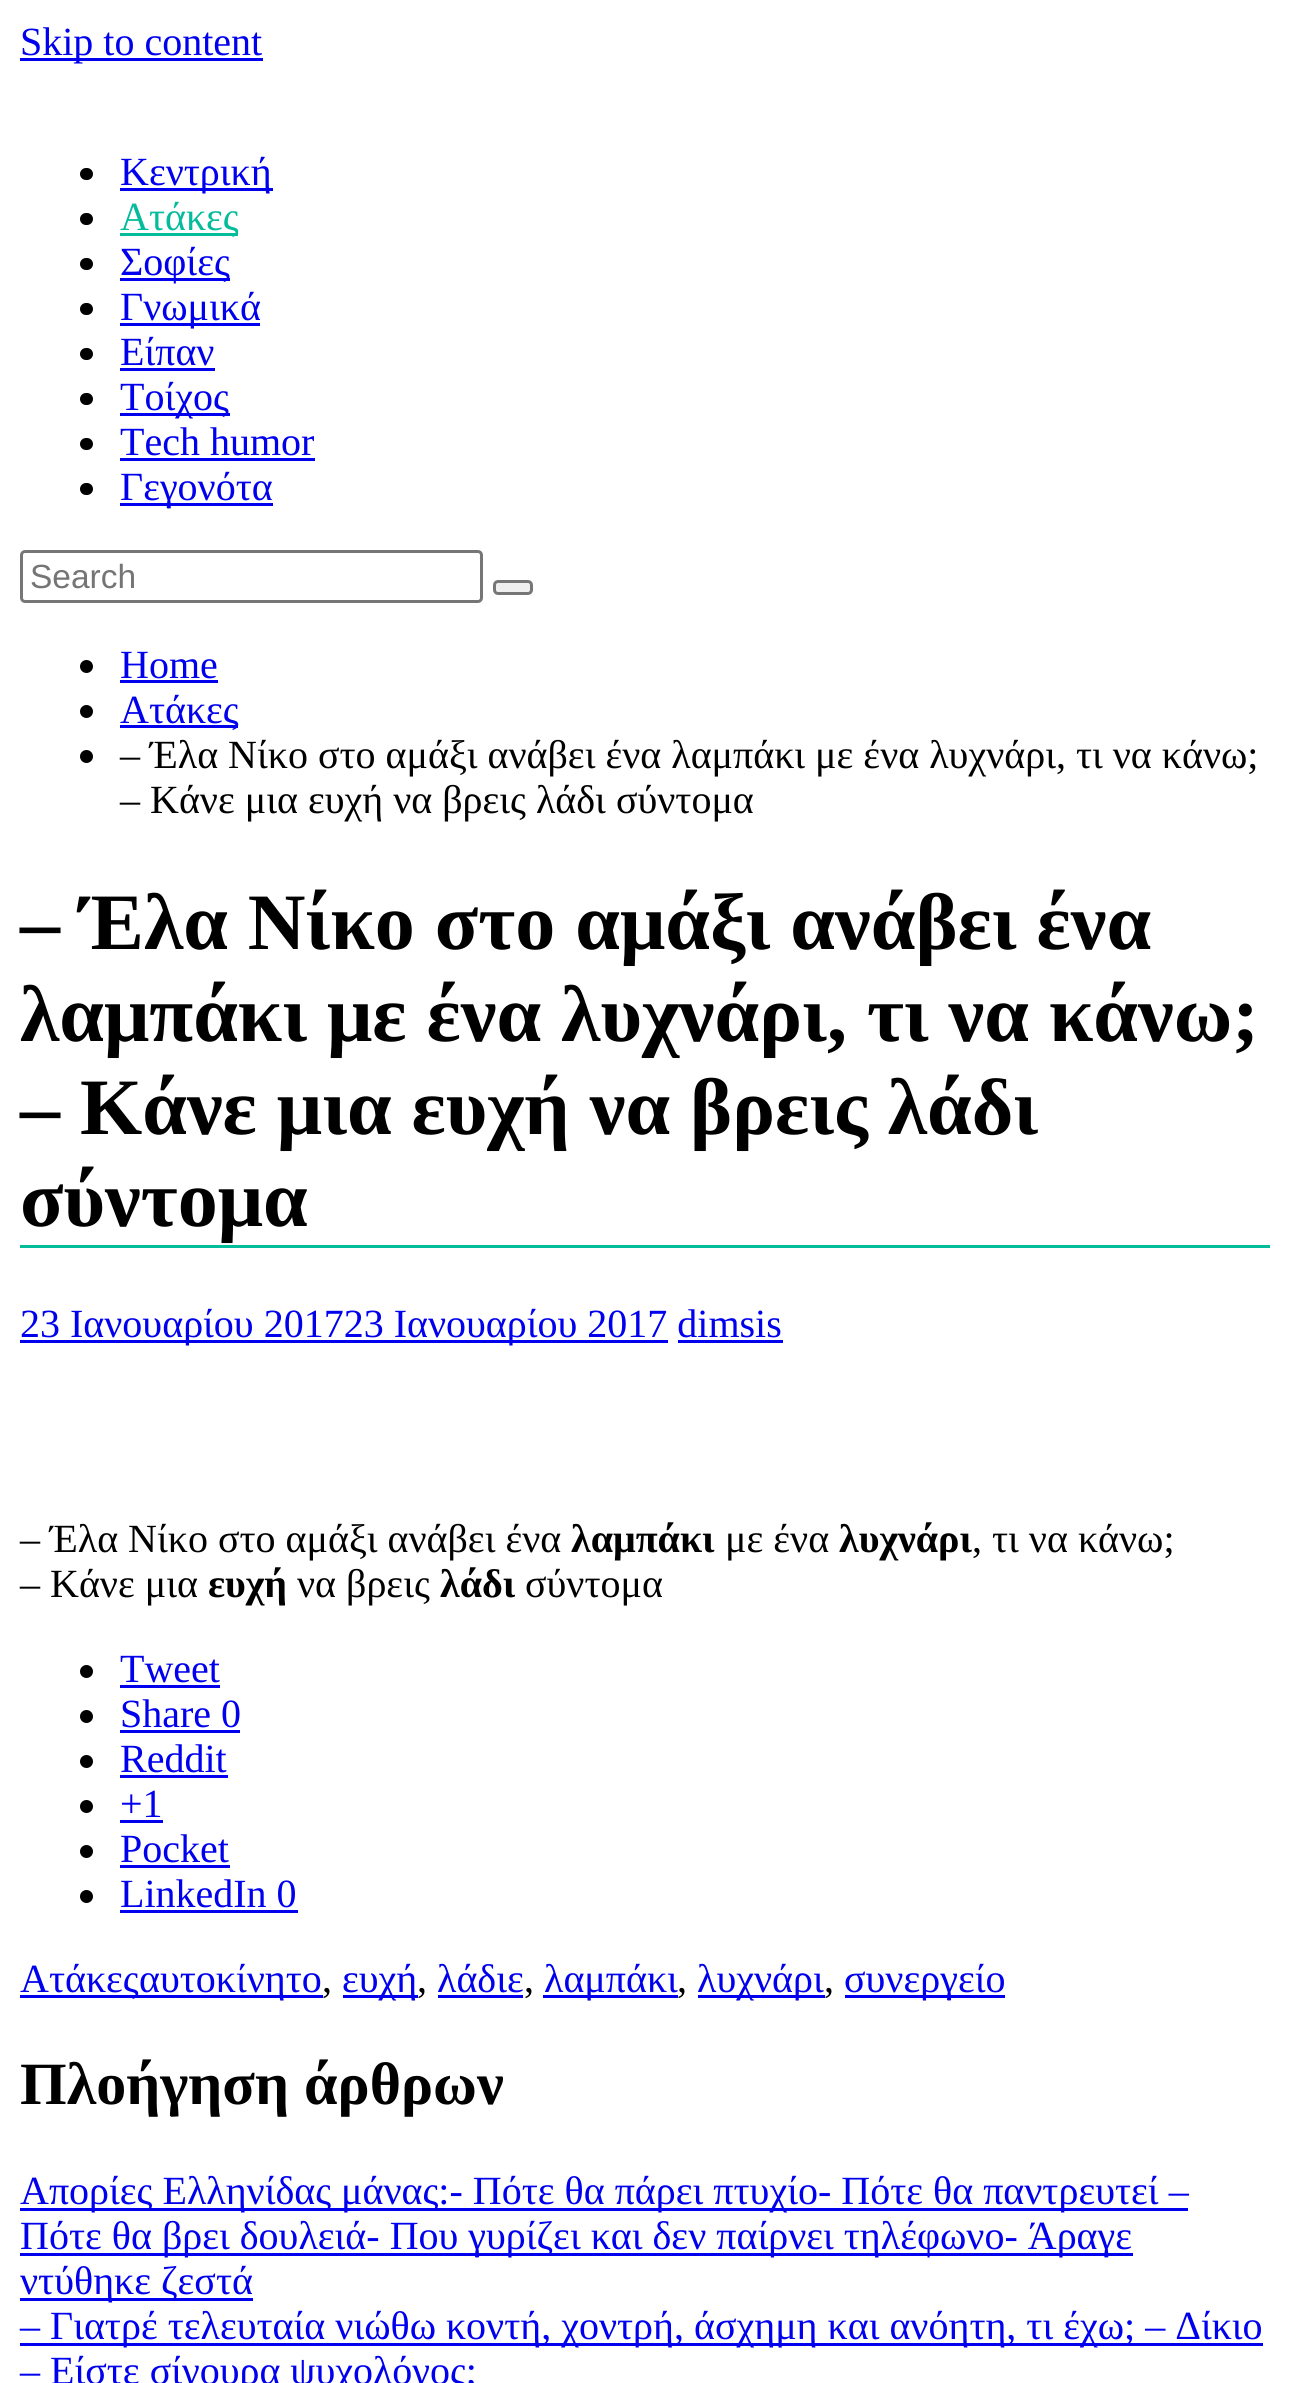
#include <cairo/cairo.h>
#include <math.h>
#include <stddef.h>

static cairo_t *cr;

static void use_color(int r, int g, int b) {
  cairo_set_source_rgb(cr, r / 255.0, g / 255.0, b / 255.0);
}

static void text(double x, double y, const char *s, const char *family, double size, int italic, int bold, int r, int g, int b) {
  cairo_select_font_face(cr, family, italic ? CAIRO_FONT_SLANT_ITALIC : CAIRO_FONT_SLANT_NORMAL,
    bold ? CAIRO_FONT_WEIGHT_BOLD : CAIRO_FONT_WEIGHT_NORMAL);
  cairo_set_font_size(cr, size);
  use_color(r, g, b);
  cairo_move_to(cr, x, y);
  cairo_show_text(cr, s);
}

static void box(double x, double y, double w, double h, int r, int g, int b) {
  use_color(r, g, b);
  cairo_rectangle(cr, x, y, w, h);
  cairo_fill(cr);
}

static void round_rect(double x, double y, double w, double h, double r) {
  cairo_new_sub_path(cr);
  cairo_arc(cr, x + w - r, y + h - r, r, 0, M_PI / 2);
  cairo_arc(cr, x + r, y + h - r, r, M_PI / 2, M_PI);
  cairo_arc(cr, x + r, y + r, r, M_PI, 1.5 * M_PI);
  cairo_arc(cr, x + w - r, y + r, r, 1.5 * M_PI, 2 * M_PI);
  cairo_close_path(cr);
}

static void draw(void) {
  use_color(255, 255, 255);
  cairo_paint(cr);
  box(20, 58, 243, 3, 0, 0, 238);
  use_color(0, 0, 0);
  round_rect(80, 168, 13, 12, 6);
  cairo_fill(cr);
  box(120, 188, 153, 3, 0, 0, 238);
  use_color(0, 0, 0);
  round_rect(80, 213, 13, 12, 6);
  cairo_fill(cr);
  box(120, 233, 118, 3, 4, 187, 156);
  use_color(0, 0, 0);
  round_rect(80, 258, 13, 12, 6);
  cairo_fill(cr);
  box(120, 278, 110, 3, 0, 0, 238);
  use_color(0, 0, 0);
  round_rect(80, 303, 13, 12, 6);
  cairo_fill(cr);
  box(120, 323, 140, 3, 0, 0, 238);
  use_color(0, 0, 0);
  round_rect(80, 348, 13, 12, 6);
  cairo_fill(cr);
  box(120, 368, 95, 3, 0, 0, 238);
  use_color(0, 0, 0);
  round_rect(80, 393, 13, 12, 6);
  cairo_fill(cr);
  box(120, 413, 110, 3, 0, 0, 238);
  use_color(0, 0, 0);
  round_rect(80, 438, 13, 12, 6);
  cairo_fill(cr);
  box(120, 458, 195, 3, 0, 0, 238);
  use_color(0, 0, 0);
  round_rect(80, 483, 13, 12, 6);
  cairo_fill(cr);
  box(120, 503, 153, 3, 0, 0, 238);
  round_rect(21.5, 551.5, 460, 50, 3.5);
  use_color(118, 118, 118);
  cairo_set_line_width(cr, 3);
  cairo_stroke(cr);
  use_color(239, 239, 239);
  round_rect(494.5, 581.5, 37, 12, 3.5);
  cairo_fill_preserve(cr);
  use_color(118, 118, 118);
  cairo_stroke(cr);
  use_color(0, 0, 0);
  cairo_arc(cr, 86.5, 666.5, 6.5, 0, 2 * M_PI);
  cairo_fill(cr);
  box(120, 680, 98, 3, 0, 0, 238);
  use_color(0, 0, 0);
  cairo_arc(cr, 86.5, 711.5, 6.5, 0, 2 * M_PI);
  cairo_fill(cr);
  box(120, 725, 118, 3, 0, 0, 238);
  use_color(0, 0, 0);
  cairo_arc(cr, 86.5, 756.5, 6.5, 0, 2 * M_PI);
  cairo_fill(cr);
  box(20, 1245, 1250, 3, 4, 187, 156);
  box(20, 1340, 648, 3, 0, 0, 238);
  box(678, 1340, 105, 3, 0, 0, 238);
  use_color(0, 0, 0);
  cairo_arc(cr, 86.5, 1671.5, 6.5, 0, 2 * M_PI);
  cairo_fill(cr);
  box(120, 1685, 100, 3, 0, 0, 238);
  use_color(0, 0, 0);
  cairo_arc(cr, 86.5, 1716.5, 6.5, 0, 2 * M_PI);
  cairo_fill(cr);
  box(120, 1730, 120, 3, 0, 0, 238);
  use_color(0, 0, 0);
  cairo_arc(cr, 86.5, 1761.5, 6.5, 0, 2 * M_PI);
  cairo_fill(cr);
  box(120, 1775, 108, 3, 0, 0, 238);
  use_color(0, 0, 0);
  cairo_arc(cr, 86.5, 1806.5, 6.5, 0, 2 * M_PI);
  cairo_fill(cr);
  box(120, 1820, 43, 3, 0, 0, 238);
  use_color(0, 0, 0);
  cairo_arc(cr, 86.5, 1851.5, 6.5, 0, 2 * M_PI);
  cairo_fill(cr);
  box(120, 1865, 110, 3, 0, 0, 238);
  use_color(0, 0, 0);
  cairo_arc(cr, 86.5, 1896.5, 6.5, 0, 2 * M_PI);
  cairo_fill(cr);
  box(120, 1910, 178, 3, 0, 0, 238);
  box(20, 1995, 118, 3, 0, 0, 238);
  box(138, 1995, 185, 3, 0, 0, 238);
  box(343, 1995, 75, 3, 0, 0, 238);
  box(438, 1995, 85, 3, 0, 0, 238);
  box(543, 1995, 135, 3, 0, 0, 238);
  box(698, 1995, 127, 3, 0, 0, 238);
  box(845, 1995, 160, 3, 0, 0, 238);
  box(20, 2208, 1168, 3, 0, 0, 238);
  box(20, 2253, 1113, 3, 0, 0, 238);
  box(20, 2298, 233, 3, 0, 0, 238);
  box(20, 2343, 1243, 3, 0, 0, 238);
  text(20, 55, "Skip to content", "Liberation Serif", 40, 0, 0, 0, 0, 238);
  text(120, 185, "Κεντρική", "Liberation Serif", 40, 0, 0, 0, 0, 238);
  text(120, 230, "Ατάκες", "Liberation Serif", 40, 0, 0, 4, 187, 156);
  text(120, 275, "Σοφίες", "Liberation Serif", 40, 0, 0, 0, 0, 238);
  text(120, 320, "Γνωμικά", "Liberation Serif", 40, 0, 0, 0, 0, 238);
  text(120, 365, "Είπαν", "Liberation Serif", 40, 0, 0, 0, 0, 238);
  text(120, 410, "Τοίχος", "Liberation Serif", 40, 0, 0, 0, 0, 238);
  text(120, 455, "Tech humor", "Liberation Serif", 40, 0, 0, 0, 0, 238);
  text(120, 500, "Γεγονότα", "Liberation Serif", 40, 0, 0, 0, 0, 238);
  text(30, 588, "Search", "Liberation Sans", 33.5, 0, 0, 117, 117, 117);
  text(120, 678, "Home", "Liberation Serif", 40, 0, 0, 0, 0, 238);
  text(120, 723, "Ατάκες", "Liberation Serif", 40, 0, 0, 0, 0, 238);
  text(120, 768, "– Έλα Νίκο στο αμάξι ανάβει ένα λαμπάκι με ένα λυχνάρι, τι να κάνω;", "Liberation Serif", 40, 0, 0, 0, 0, 0);
  text(120, 813, "– Κάνε μια ευχή να βρεις λάδι σύντομα", "Liberation Serif", 40, 0, 0, 0, 0, 0);
  text(20, 949, "– Έλα Νίκο στο αμάξι ανάβει ένα", "Liberation Serif", 80, 0, 1, 0, 0, 0);
  text(20, 1041, "λαμπάκι με ένα λυχνάρι, τι να κάνω;", "Liberation Serif", 80, 0, 1, 0, 0, 0);
  text(20, 1134, "– Κάνε μια ευχή να βρεις λάδι", "Liberation Serif", 80, 0, 1, 0, 0, 0);
  text(20, 1226, "σύντομα", "Liberation Serif", 80, 0, 1, 0, 0, 0);
  text(20, 1337, "23 Ιανουαρίου 201723 Ιανουαρίου 2017 dimsis", "Liberation Serif", 40, 0, 0, 0, 0, 238);
  text(20, 1552, "– Έλα Νίκο στο αμάξι ανάβει ένα", "Liberation Serif", 40, 0, 0, 0, 0, 0);
  text(571, 1552, "λαμπάκι", "Liberation Serif", 40, 0, 1, 0, 0, 0);
  text(725, 1552, "με ένα", "Liberation Serif", 40, 0, 0, 0, 0, 0);
  text(839, 1552, "λυχνάρι", "Liberation Serif", 40, 0, 1, 0, 0, 0);
  text(972, 1552, ", τι να κάνω;", "Liberation Serif", 40, 0, 0, 0, 0, 0);
  text(20, 1597, "– Κάνε μια", "Liberation Serif", 40, 0, 0, 0, 0, 0);
  text(208, 1597, "ευχή", "Liberation Serif", 40, 0, 1, 0, 0, 0);
  text(297, 1597, "να βρεις", "Liberation Serif", 40, 0, 0, 0, 0, 0);
  text(440, 1597, "λάδι", "Liberation Serif", 40, 0, 1, 0, 0, 0);
  text(525, 1597, "σύντομα", "Liberation Serif", 40, 0, 0, 0, 0, 0);
  text(120, 1682, "Tweet", "Liberation Serif", 40, 0, 0, 0, 0, 238);
  text(120, 1727, "Share 0", "Liberation Serif", 40, 0, 0, 0, 0, 238);
  text(120, 1772, "Reddit", "Liberation Serif", 40, 0, 0, 0, 0, 238);
  text(120, 1817, "+1", "Liberation Serif", 40, 0, 0, 0, 0, 238);
  text(120, 1862, "Pocket", "Liberation Serif", 40, 0, 0, 0, 0, 238);
  text(120, 1907, "LinkedIn 0", "Liberation Serif", 40, 0, 0, 0, 0, 238);
  text(20, 1992, "Ατάκες", "Liberation Serif", 40, 0, 0, 0, 0, 238);
  text(139, 1992, "αυτοκίνητο", "Liberation Serif", 40, 0, 0, 0, 0, 238);
  text(322, 1992, ",", "Liberation Serif", 40, 0, 0, 0, 0, 0);
  text(342, 1992, "ευχή", "Liberation Serif", 40, 0, 0, 0, 0, 238);
  text(417, 1992, ",", "Liberation Serif", 40, 0, 0, 0, 0, 0);
  text(437, 1992, "λάδιε", "Liberation Serif", 40, 0, 0, 0, 0, 238);
  text(524, 1992, ",", "Liberation Serif", 40, 0, 0, 0, 0, 0);
  text(544, 1992, "λαμπάκι", "Liberation Serif", 40, 0, 0, 0, 0, 238);
  text(677, 1992, ",", "Liberation Serif", 40, 0, 0, 0, 0, 0);
  text(697, 1992, "λυχνάρι", "Liberation Serif", 40, 0, 0, 0, 0, 238);
  text(824, 1992, ",", "Liberation Serif", 40, 0, 0, 0, 0, 0);
  text(844, 1992, "συνεργείο", "Liberation Serif", 40, 0, 0, 0, 0, 238);
  text(20, 2104, "Πλοήγηση άρθρων", "Liberation Serif", 60, 0, 1, 0, 0, 0);
  text(20, 2204, "Απορίες Ελληνίδας μάνας:- Πότε θα πάρει πτυχίο- Πότε θα παντρευτεί –", "Liberation Serif", 40, 0, 0, 0, 0, 238);
  text(20, 2249, "Πότε θα βρει δουλειά- Που γυρίζει και δεν παίρνει τηλέφωνο- Άραγε", "Liberation Serif", 40, 0, 0, 0, 0, 238);
  text(20, 2294, "ντύθηκε ζεστά", "Liberation Serif", 40, 0, 0, 0, 0, 238);
  text(20, 2339, "– Γιατρέ τελευταία νιώθω κοντή, χοντρή, άσχημη και ανόητη, τι έχω; – Δίκιο", "Liberation Serif", 40, 0, 0, 0, 0, 238);
  text(20, 2384, "– Είστε σίγουρα ψυχολόγος;", "Liberation Serif", 40, 0, 0, 0, 0, 238);
}

int main(void) {
  cairo_surface_t *surface = cairo_image_surface_create(CAIRO_FORMAT_RGB24, 1289, 2383);
  cr = cairo_create(surface);
  cairo_font_options_t *options = cairo_font_options_create();
  cairo_font_options_set_hint_metrics(options, CAIRO_HINT_METRICS_OFF);
  cairo_font_options_set_hint_style(options, CAIRO_HINT_STYLE_NONE);
  cairo_set_font_options(cr, options);
  cairo_set_miter_limit(cr, 4);
  draw();
  cairo_surface_write_to_png(surface, "out.png");
  cairo_font_options_destroy(options);
  cairo_destroy(cr);
  cairo_surface_destroy(surface);
  return 0;
}
